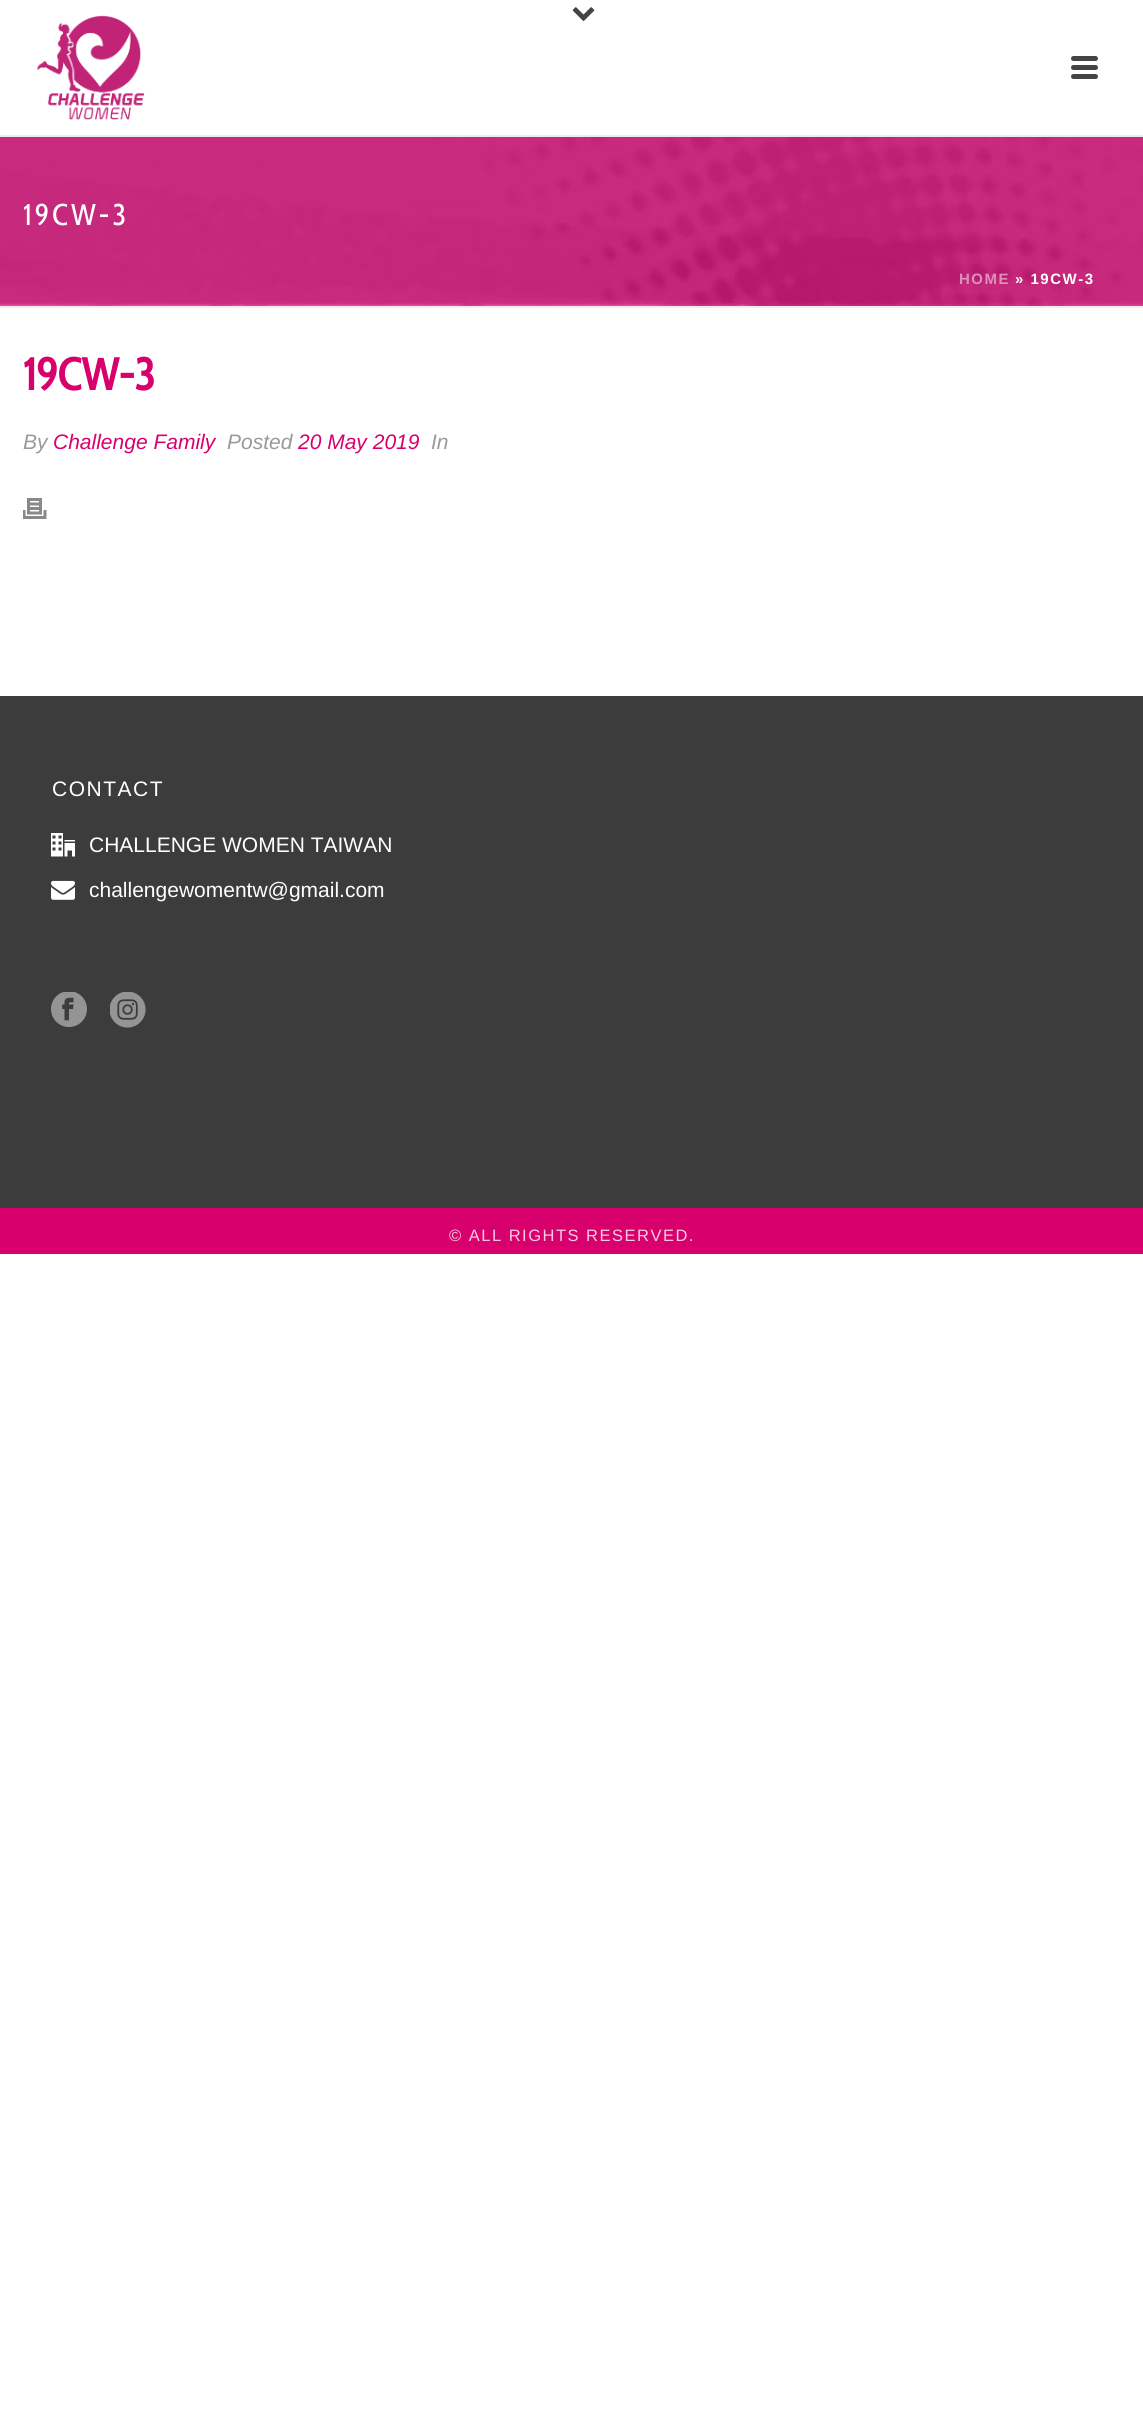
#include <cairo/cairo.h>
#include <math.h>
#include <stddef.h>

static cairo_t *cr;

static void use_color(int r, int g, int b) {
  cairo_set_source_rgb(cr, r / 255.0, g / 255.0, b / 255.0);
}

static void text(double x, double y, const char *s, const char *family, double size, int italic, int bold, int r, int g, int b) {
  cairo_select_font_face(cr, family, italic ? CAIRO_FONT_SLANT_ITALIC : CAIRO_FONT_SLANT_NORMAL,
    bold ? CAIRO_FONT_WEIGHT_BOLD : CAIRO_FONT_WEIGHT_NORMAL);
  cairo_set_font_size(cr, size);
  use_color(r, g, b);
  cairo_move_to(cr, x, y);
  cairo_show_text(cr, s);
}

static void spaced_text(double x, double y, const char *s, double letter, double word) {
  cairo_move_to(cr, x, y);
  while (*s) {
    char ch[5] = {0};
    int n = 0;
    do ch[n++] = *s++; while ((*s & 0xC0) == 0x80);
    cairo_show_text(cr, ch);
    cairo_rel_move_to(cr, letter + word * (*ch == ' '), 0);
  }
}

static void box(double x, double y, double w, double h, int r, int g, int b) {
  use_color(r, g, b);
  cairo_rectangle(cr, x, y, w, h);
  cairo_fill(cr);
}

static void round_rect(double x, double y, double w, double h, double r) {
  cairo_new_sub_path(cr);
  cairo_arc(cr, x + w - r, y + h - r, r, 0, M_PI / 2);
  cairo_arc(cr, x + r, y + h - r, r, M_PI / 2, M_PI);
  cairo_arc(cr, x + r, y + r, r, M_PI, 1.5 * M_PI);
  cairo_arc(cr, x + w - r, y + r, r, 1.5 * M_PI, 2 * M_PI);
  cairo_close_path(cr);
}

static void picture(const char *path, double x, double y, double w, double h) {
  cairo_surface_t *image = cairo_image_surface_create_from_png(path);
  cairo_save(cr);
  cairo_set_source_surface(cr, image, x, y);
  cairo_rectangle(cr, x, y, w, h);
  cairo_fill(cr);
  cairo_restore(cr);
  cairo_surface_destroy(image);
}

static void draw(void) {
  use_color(255, 255, 255);
  cairo_paint(cr);
  picture("img_01.png", 0, 137, 1143, 169);
  box(0, 306, 1143, 2, 237, 237, 237);
  box(0, 135, 1143, 2, 237, 237, 237);
  picture("img_02.png", 572, 7, 23, 14);
  picture("img_03.png", 36, 15, 109, 105);
  use_color(68, 68, 68);
  round_rect(1071, 56, 27, 5, 2.5);
  cairo_fill(cr);
  round_rect(1071, 65, 27, 5, 2.5);
  cairo_fill(cr);
  round_rect(1071, 74, 27, 5, 2.5);
  cairo_fill(cr);
  picture("img_04.png", 23, 498, 24, 21);
  box(0, 696, 1143, 512, 60, 60, 60);
  picture("img_05.png", 51, 833, 24, 24);
  picture("img_06.png", 51, 880, 24, 20);
  picture("img_07.png", 51, 992, 36, 35);
  picture("img_08.png", 110, 992, 36, 36);
  box(0, 1208, 1143, 46, 216, 0, 108);
  cairo_select_font_face(cr, "Cabin Condensed", CAIRO_FONT_SLANT_NORMAL, CAIRO_FONT_WEIGHT_NORMAL);
  cairo_set_font_size(cr, 30);
  use_color(255, 255, 255);
  spaced_text(23, 225, "19CW-3", 3, 0);
  cairo_select_font_face(cr, "Liberation Sans", CAIRO_FONT_SLANT_NORMAL, CAIRO_FONT_WEIGHT_BOLD);
  cairo_set_font_size(cr, 15);
  use_color(223, 144, 186);
  spaced_text(959, 284, "HOME", 1.5, 0);
  use_color(255, 255, 255);
  spaced_text(1015, 284, "» 19CW-3", 1.5, 0);
  text(23, 390, "19CW-3", "Cabin Condensed", 45, 0, 1, 216, 0, 108);
  text(23, 449, "By", "Liberation Sans", 21, 1, 0, 153, 153, 153);
  text(53, 449, "Challenge Family", "Liberation Sans", 21, 1, 0, 216, 0, 108);
  text(227, 449, "Posted", "Liberation Sans", 21, 1, 0, 153, 153, 153);
  text(298, 449, "20 May 2019", "Liberation Sans", 21, 1, 0, 216, 0, 108);
  text(431, 449, "In", "Liberation Sans", 21, 1, 0, 153, 153, 153);
  cairo_select_font_face(cr, "Liberation Sans", CAIRO_FONT_SLANT_NORMAL, CAIRO_FONT_WEIGHT_NORMAL);
  use_color(255, 255, 255);
  spaced_text(52, 796, "CONTACT", 1.5, 0);
  text(89, 852, "CHALLENGE WOMEN TAIWAN", "Liberation Sans", 21, 0, 0, 255, 255, 255);
  text(89, 897, "challengewomentw@gmail.com", "Liberation Sans", 21, 0, 0, 255, 255, 255);
  cairo_set_font_size(cr, 16.5);
  use_color(247, 204, 226);
  spaced_text(449, 1241, "© ALL RIGHTS RESERVED.", 1.5, 0);
}

int main(void) {
  cairo_surface_t *surface = cairo_image_surface_create(CAIRO_FORMAT_RGB24, 1143, 2423);
  cr = cairo_create(surface);
  cairo_font_options_t *options = cairo_font_options_create();
  cairo_font_options_set_hint_metrics(options, CAIRO_HINT_METRICS_OFF);
  cairo_font_options_set_hint_style(options, CAIRO_HINT_STYLE_NONE);
  cairo_set_font_options(cr, options);
  cairo_set_miter_limit(cr, 4);
  draw();
  cairo_surface_write_to_png(surface, "out.png");
  cairo_font_options_destroy(options);
  cairo_destroy(cr);
  cairo_surface_destroy(surface);
  return 0;
}
